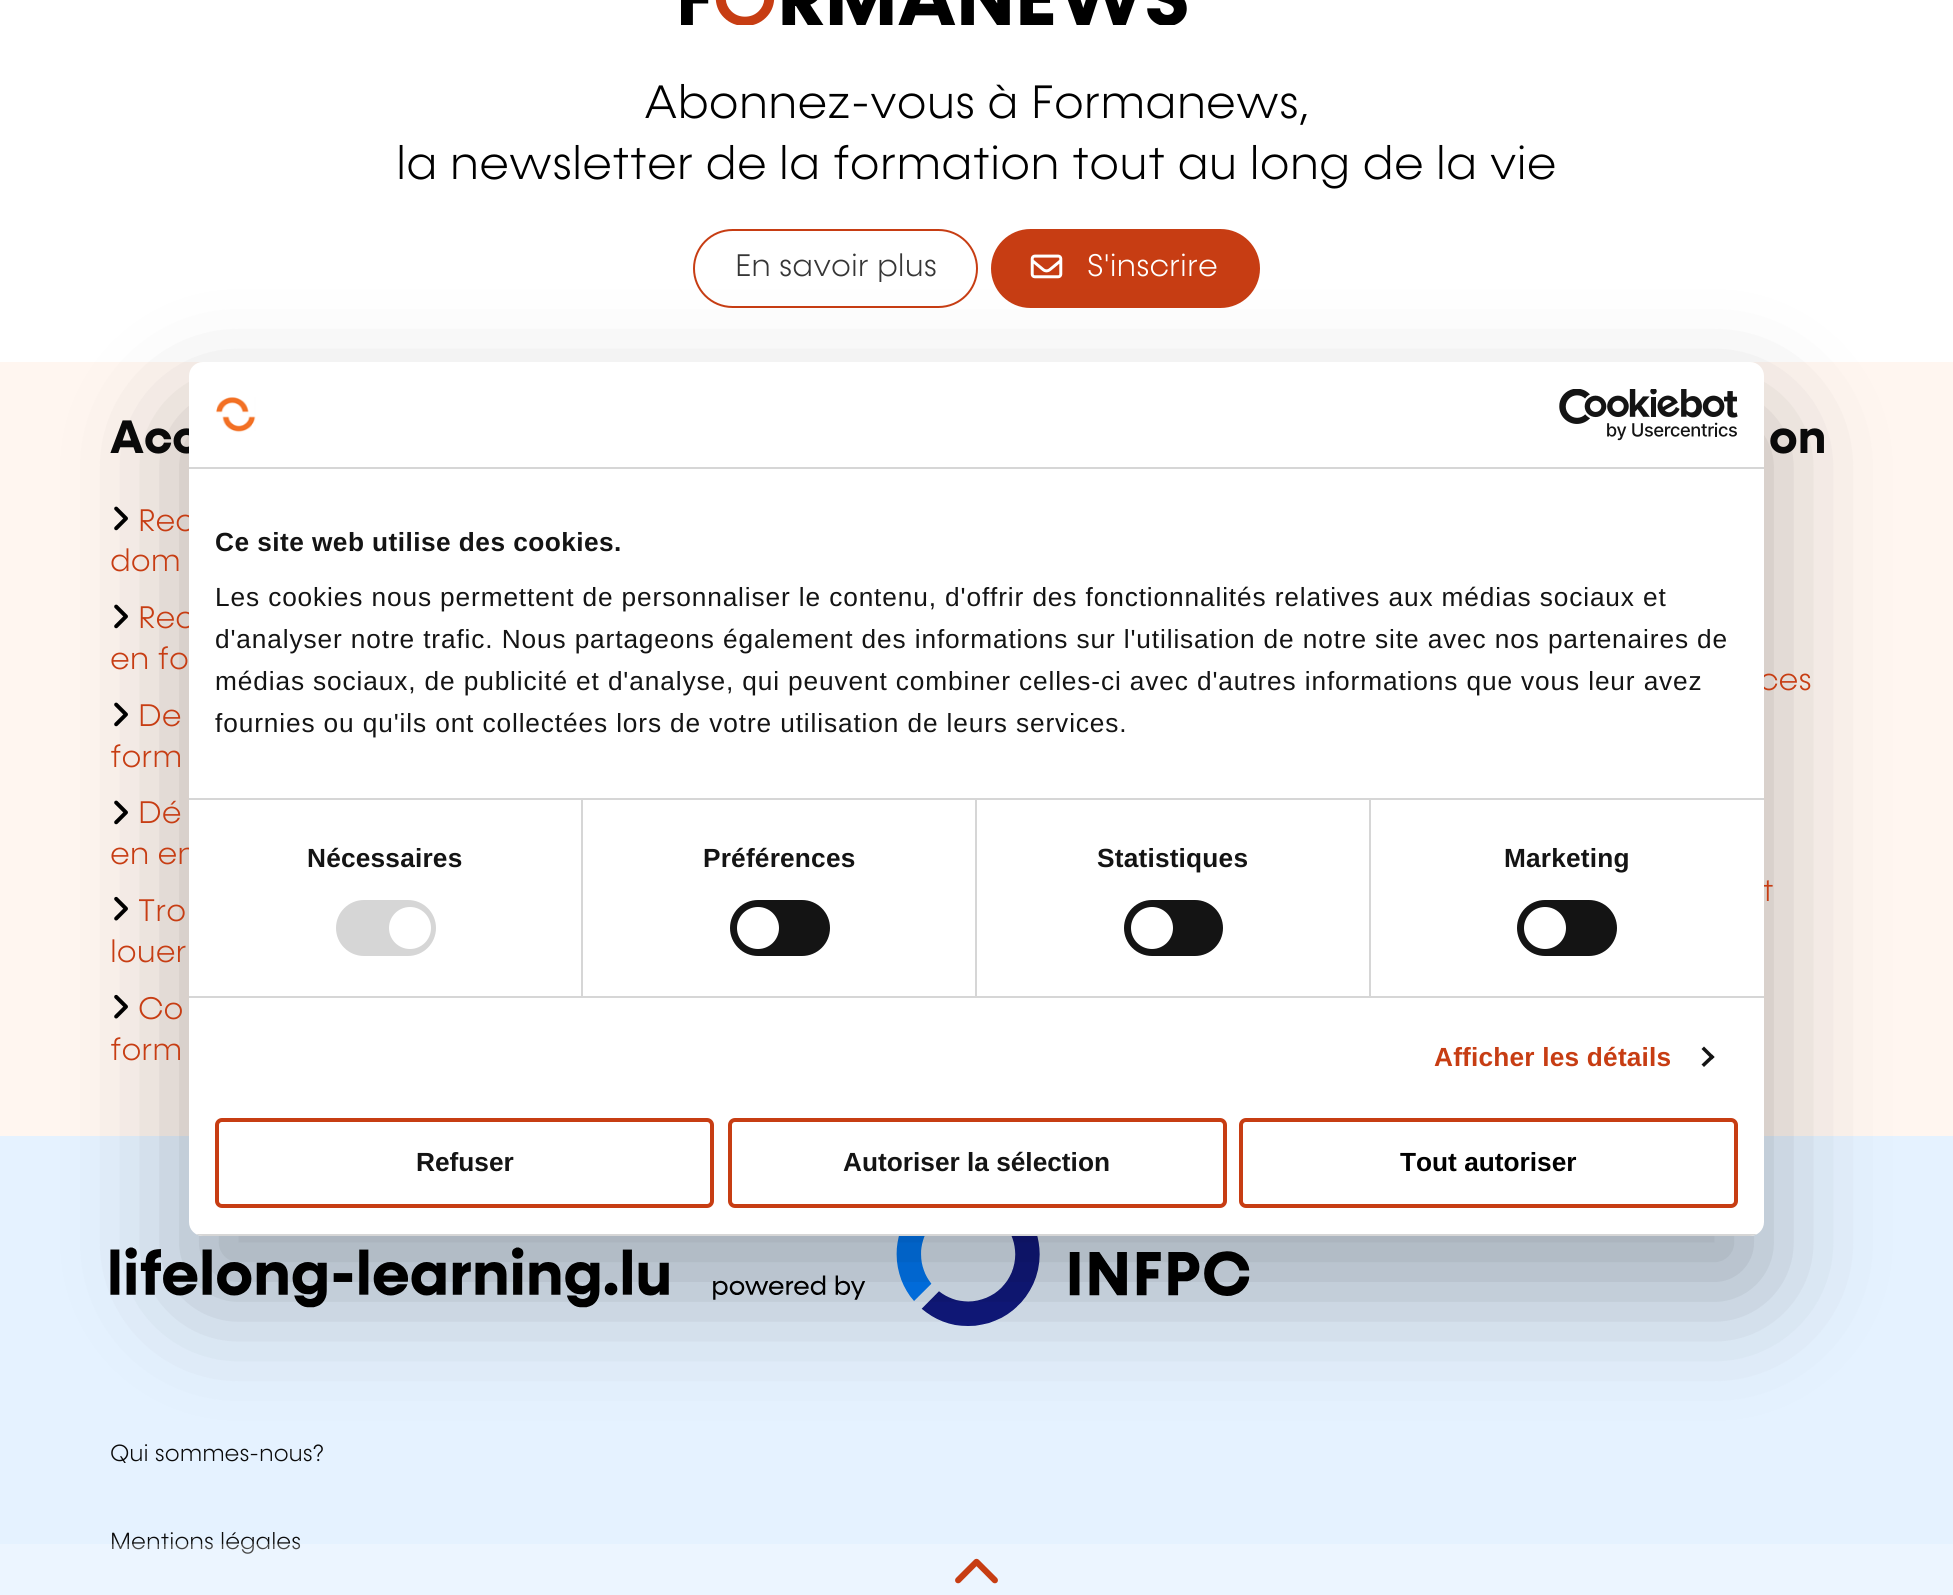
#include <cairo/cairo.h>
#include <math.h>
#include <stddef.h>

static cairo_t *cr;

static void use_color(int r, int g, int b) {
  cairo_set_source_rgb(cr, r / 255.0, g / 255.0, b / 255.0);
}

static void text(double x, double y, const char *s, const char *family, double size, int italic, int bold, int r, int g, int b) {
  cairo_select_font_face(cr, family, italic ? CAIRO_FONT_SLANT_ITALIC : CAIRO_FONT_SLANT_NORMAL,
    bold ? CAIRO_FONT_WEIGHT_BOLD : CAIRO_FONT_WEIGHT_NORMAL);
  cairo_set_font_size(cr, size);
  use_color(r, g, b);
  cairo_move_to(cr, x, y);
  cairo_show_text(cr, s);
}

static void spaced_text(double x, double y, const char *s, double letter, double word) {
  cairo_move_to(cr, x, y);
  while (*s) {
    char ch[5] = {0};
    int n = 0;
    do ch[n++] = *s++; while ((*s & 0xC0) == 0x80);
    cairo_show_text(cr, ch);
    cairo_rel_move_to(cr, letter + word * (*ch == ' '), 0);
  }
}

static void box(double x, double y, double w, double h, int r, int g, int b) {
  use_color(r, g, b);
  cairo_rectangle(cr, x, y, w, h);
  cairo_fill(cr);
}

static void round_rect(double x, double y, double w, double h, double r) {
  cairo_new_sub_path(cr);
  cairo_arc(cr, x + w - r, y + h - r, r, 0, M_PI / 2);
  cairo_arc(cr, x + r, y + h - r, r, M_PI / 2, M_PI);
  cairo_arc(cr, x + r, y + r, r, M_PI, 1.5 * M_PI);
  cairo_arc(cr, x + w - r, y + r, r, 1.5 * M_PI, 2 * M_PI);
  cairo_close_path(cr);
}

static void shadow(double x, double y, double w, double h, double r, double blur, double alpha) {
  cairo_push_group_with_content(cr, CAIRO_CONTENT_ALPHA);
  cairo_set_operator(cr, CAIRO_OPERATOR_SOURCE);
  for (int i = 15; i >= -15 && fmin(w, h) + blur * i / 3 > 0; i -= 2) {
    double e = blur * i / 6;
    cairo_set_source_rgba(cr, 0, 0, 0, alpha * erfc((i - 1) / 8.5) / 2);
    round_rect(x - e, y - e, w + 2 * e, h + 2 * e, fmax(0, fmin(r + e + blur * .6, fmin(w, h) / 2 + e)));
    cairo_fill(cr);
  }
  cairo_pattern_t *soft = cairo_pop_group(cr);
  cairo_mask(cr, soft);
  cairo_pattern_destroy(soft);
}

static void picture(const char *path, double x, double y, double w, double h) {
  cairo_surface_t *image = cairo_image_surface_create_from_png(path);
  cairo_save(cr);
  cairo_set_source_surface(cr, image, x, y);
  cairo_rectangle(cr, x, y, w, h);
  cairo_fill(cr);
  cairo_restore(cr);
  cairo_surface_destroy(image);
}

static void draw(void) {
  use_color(255, 255, 255);
  cairo_paint(cr);
  picture("img_01.png", 681, 0, 506, 25);
  round_rect(694, 230, 283, 77, 38.5);
  use_color(199, 61, 19);
  cairo_stroke(cr);
  round_rect(992, 230, 267, 77, 38.5);
  cairo_fill_preserve(cr);
  cairo_stroke(cr);
  picture("img_02.png", 1030, 254, 33, 25);
  box(0, 362, 1953, 774, 255, 246, 240);
  picture("img_03.png", 114, 506, 14, 25);
  picture("img_03.png", 114, 604, 14, 25);
  picture("img_03.png", 114, 702, 14, 25);
  picture("img_03.png", 114, 800, 14, 25);
  picture("img_04.png", 114, 896, 14, 25);
  picture("img_04.png", 114, 994, 14, 25);
  box(0, 1136, 1953, 459, 229, 242, 255);
  picture("img_05.png", 110, 1236, 1140, 90);
  use_color(0, 0, 0);
  shadow(189, 418, 1575, 874, 14, 59.5, 0.3);
  text(644, 118, "Abonnez-vous à Formanews,", "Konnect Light", 47.25, 0, 0, 0, 0, 0);
  text(396, 179, "la newsletter de la formation tout au long de la vie", "Konnect Light", 47.25, 0, 0, 0, 0, 0);
  text(735, 276, "En savoir plus", "Konnect Light", 31.5, 0, 0, 54, 54, 54);
  text(1087, 276, "S'inscrire", "Konnect Light", 31.5, 0, 0, 255, 255, 255);
  text(110, 453, "Acc", "Konnect", 47.25, 0, 1, 10, 10, 10);
  text(138, 531, "Rec", "Konnect Light", 31.5, 0, 0, 199, 61, 19);
  text(110, 571, "dom", "Konnect Light", 31.5, 0, 0, 199, 61, 19);
  text(138, 628, "Rec", "Konnect Light", 31.5, 0, 0, 199, 61, 19);
  text(110, 669, "en fo", "Konnect Light", 31.5, 0, 0, 199, 61, 19);
  text(138, 726, "De", "Konnect Light", 31.5, 0, 0, 199, 61, 19);
  text(110, 767, "form", "Konnect Light", 31.5, 0, 0, 199, 61, 19);
  text(138, 823, "Dé", "Konnect Light", 31.5, 0, 0, 199, 61, 19);
  text(110, 864, "en en", "Konnect Light", 31.5, 0, 0, 199, 61, 19);
  text(138, 921, "Tro", "Konnect Light", 31.5, 0, 0, 199, 61, 19);
  text(110, 962, "louer", "Konnect Light", 31.5, 0, 0, 199, 61, 19);
  text(138, 1019, "Co", "Konnect Light", 31.5, 0, 0, 199, 61, 19);
  text(110, 1060, "form", "Konnect Light", 31.5, 0, 0, 199, 61, 19);
  text(1769, 453, "on", "Konnect", 47.25, 0, 1, 10, 10, 10);
  text(1759, 690, "ces", "Konnect Light", 31.5, 0, 0, 199, 61, 19);
  text(1762, 901, "t", "Konnect Light", 31.5, 0, 0, 199, 61, 19);
  text(110, 1461, "Qui sommes-nous?", "Konnect Light", 23.6, 0, 0, 10, 10, 10);
  text(110, 1549, "Mentions légales", "Konnect Light", 23.6, 0, 0, 10, 10, 10);
  cairo_set_source_rgba(cr, 1, 1, 1, 0.25);
  cairo_rectangle(cr, 0, 1544, 1953, 51);
  cairo_fill(cr);
  picture("img_06.png", 955, 1558, 43, 26);
  use_color(255, 255, 255);
  round_rect(189, 362, 1575, 874, 14);
  cairo_fill(cr);
  box(189, 467, 1575, 2, 214, 214, 214);
  picture("img_07.png", 216, 397, 40, 36);
  picture("img_08.png", 1559, 389, 179, 52);
  box(189, 798, 1575, 2, 214, 214, 214);
  cairo_select_font_face(cr, "Liberation Sans", CAIRO_FONT_SLANT_NORMAL, CAIRO_FONT_WEIGHT_BOLD);
  cairo_set_font_size(cr, 26.25);
  use_color(20, 20, 20);
  spaced_text(215, 551, "Ce site web utilise des cookies.", 0.45, 0);
  cairo_select_font_face(cr, "Liberation Sans", CAIRO_FONT_SLANT_NORMAL, CAIRO_FONT_WEIGHT_NORMAL);
  spaced_text(215, 606, "Les cookies nous permettent de personnaliser le contenu, d'offrir des fonctionnalités relatives aux médias sociaux et", 0.88, 0);
  spaced_text(215, 648, "d'analyser notre trafic. Nous partageons également des informations sur l'utilisation de notre site avec nos partenaires de", 0.88, 0);
  spaced_text(215, 690, "médias sociaux, de publicité et d'analyse, qui peuvent combiner celles-ci avec d'autres informations que vous leur avez", 0.88, 0);
  spaced_text(215, 732, "fournies ou qu'ils ont collectées lors de votre utilisation de leurs services.", 0.88, 0);
  box(189, 996, 1575, 2, 214, 214, 214);
  box(581, 800, 2, 196, 214, 214, 214);
  cairo_select_font_face(cr, "Liberation Sans", CAIRO_FONT_SLANT_NORMAL, CAIRO_FONT_WEIGHT_BOLD);
  use_color(20, 20, 20);
  spaced_text(307, 867, "Nécessaires", 0.2, 0);
  use_color(214, 214, 214);
  round_rect(336, 900, 100, 56, 28);
  cairo_fill(cr);
  use_color(255, 255, 255);
  cairo_arc(cr, 410, 928, 21, 0, 2 * M_PI);
  cairo_fill(cr);
  box(975, 800, 2, 196, 214, 214, 214);
  use_color(20, 20, 20);
  spaced_text(703, 867, "Préférences", 0.2, 0);
  round_rect(730, 900, 100, 56, 28);
  cairo_fill(cr);
  use_color(255, 255, 255);
  cairo_arc(cr, 758, 928, 21, 0, 2 * M_PI);
  cairo_fill(cr);
  box(1369, 800, 2, 196, 214, 214, 214);
  use_color(20, 20, 20);
  spaced_text(1097, 867, "Statistiques", 0.2, 0);
  round_rect(1124, 900, 99, 56, 28);
  cairo_fill(cr);
  use_color(255, 255, 255);
  cairo_arc(cr, 1152, 928, 21, 0, 2 * M_PI);
  cairo_fill(cr);
  use_color(20, 20, 20);
  spaced_text(1504, 867, "Marketing", 0.2, 0);
  round_rect(1517, 900, 100, 56, 28);
  cairo_fill(cr);
  use_color(255, 255, 255);
  cairo_arc(cr, 1545, 928, 21, 0, 2 * M_PI);
  cairo_fill(cr);
  use_color(199, 61, 19);
  spaced_text(1434, 1066, "Afficher les détails", 0.2, 0);
  use_color(20, 20, 20);
  cairo_new_path(cr);
  cairo_move_to(cr, 1704, 1046.5);
  cairo_line_to(cr, 1714.5, 1057);
  cairo_line_to(cr, 1712, 1059.5);
  cairo_line_to(cr, 1701.5, 1049);
  cairo_close_path(cr);
  cairo_fill(cr);
  cairo_new_path(cr);
  cairo_move_to(cr, 1712, 1054.5);
  cairo_line_to(cr, 1714.5, 1057);
  cairo_line_to(cr, 1704, 1067);
  cairo_line_to(cr, 1701.5, 1064.5);
  cairo_close_path(cr);
  cairo_fill(cr);
  cairo_save(cr);
  round_rect(189, 362, 1575, 874, 14);
  cairo_clip(cr);
  box(189, 1234, 1575, 2, 214, 214, 214);
  cairo_restore(cr);
  round_rect(217, 1120, 495, 86, 5);
  use_color(199, 61, 19);
  cairo_set_line_width(cr, 4);
  cairo_stroke(cr);
  text(416, 1171, "Refuser", "Liberation Sans", 26.25, 0, 1, 20, 20, 20);
  round_rect(730, 1120, 495, 86, 5);
  use_color(199, 61, 19);
  cairo_stroke(cr);
  text(843, 1171, "Autoriser la sélection", "Liberation Sans", 26.25, 0, 1, 20, 20, 20);
  round_rect(1241, 1120, 495, 86, 5);
  use_color(199, 61, 19);
  cairo_stroke(cr);
  text(1400, 1171, "Tout autoriser", "Liberation Sans", 26.25, 0, 1, 0, 0, 0);
}

int main(void) {
  cairo_surface_t *surface = cairo_image_surface_create(CAIRO_FORMAT_RGB24, 1953, 1595);
  cr = cairo_create(surface);
  cairo_font_options_t *options = cairo_font_options_create();
  cairo_font_options_set_hint_metrics(options, CAIRO_HINT_METRICS_OFF);
  cairo_font_options_set_hint_style(options, CAIRO_HINT_STYLE_NONE);
  cairo_set_font_options(cr, options);
  cairo_set_miter_limit(cr, 4);
  draw();
  cairo_surface_write_to_png(surface, "out.png");
  cairo_font_options_destroy(options);
  cairo_destroy(cr);
  cairo_surface_destroy(surface);
  return 0;
}
